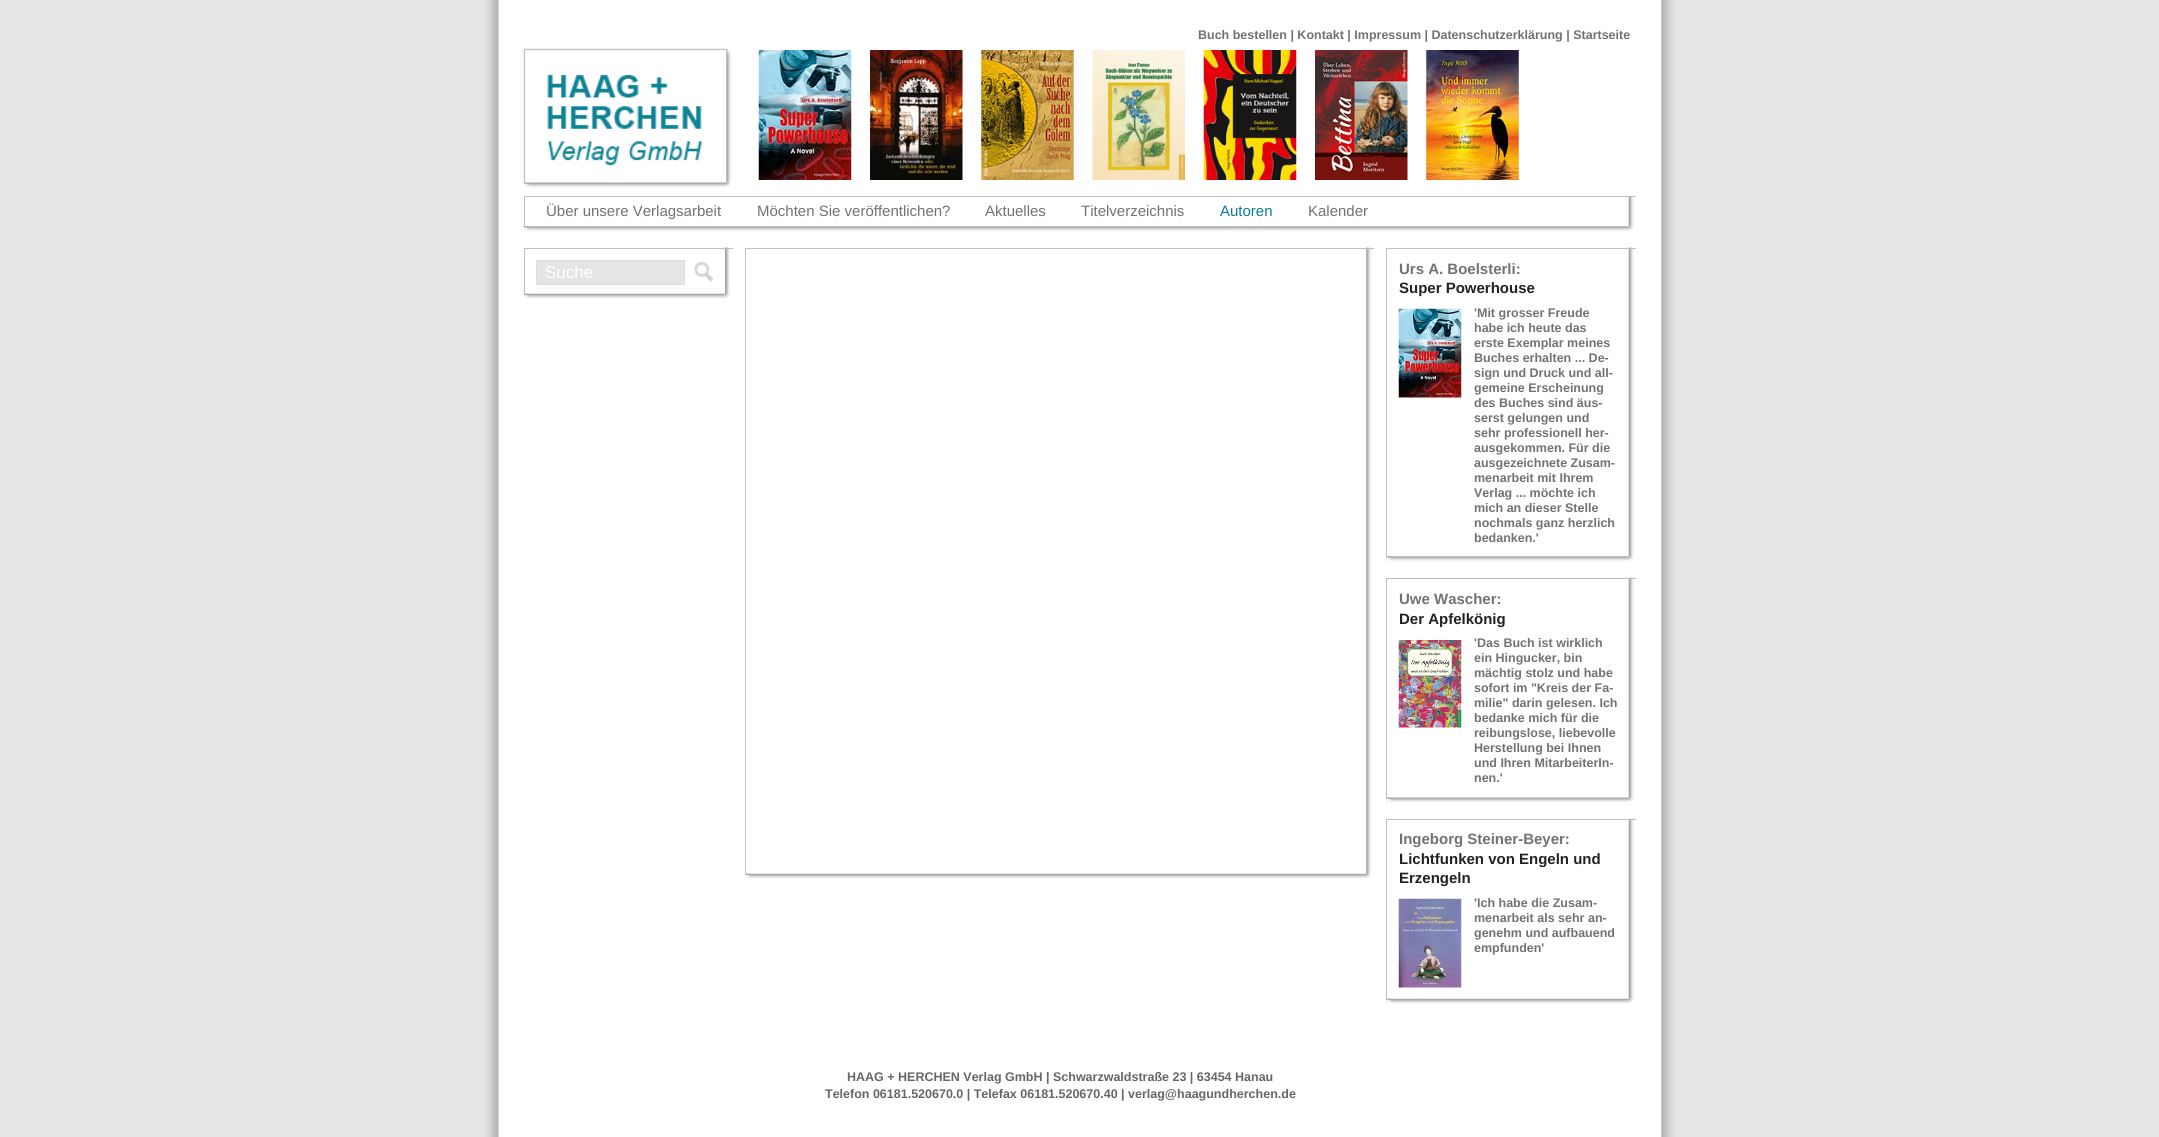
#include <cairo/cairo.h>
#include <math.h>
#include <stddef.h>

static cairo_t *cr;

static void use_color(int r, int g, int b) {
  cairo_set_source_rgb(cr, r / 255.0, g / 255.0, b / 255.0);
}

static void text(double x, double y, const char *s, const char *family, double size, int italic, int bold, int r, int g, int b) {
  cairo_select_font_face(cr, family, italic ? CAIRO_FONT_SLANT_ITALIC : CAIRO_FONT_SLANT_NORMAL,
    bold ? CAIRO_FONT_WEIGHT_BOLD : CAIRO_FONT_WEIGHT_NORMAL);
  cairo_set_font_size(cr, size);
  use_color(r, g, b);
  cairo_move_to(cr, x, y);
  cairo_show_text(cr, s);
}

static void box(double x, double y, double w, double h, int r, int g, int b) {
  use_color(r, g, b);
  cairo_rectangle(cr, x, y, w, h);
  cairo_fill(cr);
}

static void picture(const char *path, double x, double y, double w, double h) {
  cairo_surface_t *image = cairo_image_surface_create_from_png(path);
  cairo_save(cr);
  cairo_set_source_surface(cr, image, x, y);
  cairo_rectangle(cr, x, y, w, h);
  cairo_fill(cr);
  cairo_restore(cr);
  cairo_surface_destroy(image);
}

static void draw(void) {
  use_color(229, 229, 229);
  cairo_paint(cr);
  picture("img_01.png", 480, 0, 1200, 1137);
  picture("img_02.png", 523, 48, 209, 140);
  picture("img_03.png", 758, 50, 94, 130);
  picture("img_04.png", 870, 50, 93, 130);
  picture("img_05.png", 981, 50, 93, 130);
  picture("img_06.png", 1092, 50, 93, 130);
  picture("img_07.png", 1203, 50, 94, 130);
  picture("img_08.png", 1315, 50, 93, 130);
  picture("img_09.png", 1426, 50, 93, 130);
  picture("img_10.png", 1628, 197, 6, 30);
  box(524, 196, 1112, 1, 191, 191, 191);
  box(524, 196, 1, 37, 191, 191, 191);
  picture("img_11.png", 525, 226, 1109, 7);
  picture("img_12.png", 523, 226, 6, 7);
  picture("img_13.png", 725, 247, 5, 47);
  box(524, 248, 209, 1, 191, 191, 191);
  box(524, 248, 1, 52, 191, 191, 191);
  use_color(229, 229, 229);
  cairo_rectangle(cr, 536.5, 260.5, 148, 24);
  cairo_fill_preserve(cr);
  use_color(220, 220, 220);
  cairo_set_line_width(cr, 1);
  cairo_stroke(cr);
  picture("img_14.png", 693, 261, 21, 21);
  picture("img_15.png", 525, 293, 205, 7);
  picture("img_16.png", 523, 293, 6, 7);
  picture("img_17.png", 1366, 247, 6, 627);
  box(745, 248, 629, 1, 191, 191, 191);
  box(745, 248, 1, 632, 191, 191, 191);
  picture("img_18.png", 746, 873, 626, 7);
  picture("img_19.png", 745, 873, 5, 7);
  picture("img_20.png", 1628, 247, 6, 310);
  box(1386, 248, 250, 1, 191, 191, 191);
  box(1386, 248, 1, 315, 191, 191, 191);
  picture("img_21.png", 1398, 308, 64, 90);
  picture("img_22.png", 1387, 556, 247, 7);
  picture("img_23.png", 1386, 556, 6, 7);
  picture("img_24.png", 1628, 577, 6, 221);
  box(1386, 578, 250, 1, 191, 191, 191);
  box(1386, 578, 1, 226, 191, 191, 191);
  picture("img_25.png", 1398, 640, 64, 88);
  picture("img_26.png", 1387, 797, 247, 7);
  picture("img_27.png", 1386, 797, 6, 7);
  picture("img_28.png", 1628, 818, 6, 181);
  box(1386, 819, 250, 1, 191, 191, 191);
  box(1386, 819, 1, 186, 191, 191, 191);
  picture("img_29.png", 1398, 898, 64, 90);
  picture("img_30.png", 1387, 998, 247, 7);
  picture("img_31.png", 1386, 998, 6, 7);
  text(1198, 39, "Buch bestellen | Kontakt | Impressum | Datenschutzerklärung | Startseite", "Liberation Sans", 12.5, 0, 1, 114, 114, 114);
  text(546, 216, "Über unsere Verlagsarbeit", "Liberation Sans", 15, 0, 0, 114, 114, 114);
  text(757, 216, "Möchten Sie veröffentlichen?", "Liberation Sans", 15, 0, 0, 114, 114, 114);
  text(985, 216, "Aktuelles", "Liberation Sans", 15, 0, 0, 114, 114, 114);
  text(1081, 216, "Titelverzeichnis", "Liberation Sans", 15, 0, 0, 114, 114, 114);
  text(1220, 216, "Autoren", "Liberation Sans", 15, 0, 0, 15, 125, 150);
  text(1308, 216, "Kalender", "Liberation Sans", 15, 0, 0, 114, 114, 114);
  text(545, 278, "Suche", "Liberation Sans", 17, 0, 0, 255, 255, 255);
  text(1399, 274, "Urs A. Boelsterli:", "Liberation Sans", 15, 0, 1, 114, 114, 114);
  text(1399, 293, "Super Powerhouse", "Liberation Sans", 15, 0, 1, 34, 34, 34);
  text(1474, 317, "'Mit grosser Freude", "Liberation Sans", 12.5, 0, 1, 114, 114, 114);
  text(1474, 332, "habe ich heute das", "Liberation Sans", 12.5, 0, 1, 114, 114, 114);
  text(1474, 347, "erste Exemplar meines", "Liberation Sans", 12.5, 0, 1, 114, 114, 114);
  text(1474, 362, "Buches erhalten ... De-", "Liberation Sans", 12.5, 0, 1, 114, 114, 114);
  text(1474, 377, "sign und Druck und all-", "Liberation Sans", 12.5, 0, 1, 114, 114, 114);
  text(1474, 392, "gemeine Erscheinung", "Liberation Sans", 12.5, 0, 1, 114, 114, 114);
  text(1474, 407, "des Buches sind äus-", "Liberation Sans", 12.5, 0, 1, 114, 114, 114);
  text(1474, 422, "serst gelungen und", "Liberation Sans", 12.5, 0, 1, 114, 114, 114);
  text(1474, 437, "sehr professionell her-", "Liberation Sans", 12.5, 0, 1, 114, 114, 114);
  text(1474, 452, "ausgekommen. Für die", "Liberation Sans", 12.5, 0, 1, 114, 114, 114);
  text(1474, 467, "ausgezeichnete Zusam-", "Liberation Sans", 12.5, 0, 1, 114, 114, 114);
  text(1474, 482, "menarbeit mit Ihrem", "Liberation Sans", 12.5, 0, 1, 114, 114, 114);
  text(1474, 497, "Verlag ... möchte ich", "Liberation Sans", 12.5, 0, 1, 114, 114, 114);
  text(1474, 512, "mich an dieser Stelle", "Liberation Sans", 12.5, 0, 1, 114, 114, 114);
  text(1474, 527, "nochmals ganz herzlich", "Liberation Sans", 12.5, 0, 1, 114, 114, 114);
  text(1474, 542, "bedanken.'", "Liberation Sans", 12.5, 0, 1, 114, 114, 114);
  text(1399, 604, "Uwe Wascher:", "Liberation Sans", 15, 0, 1, 114, 114, 114);
  text(1399, 624, "Der Apfelkönig", "Liberation Sans", 15, 0, 1, 34, 34, 34);
  text(1474, 647, "'Das Buch ist wirklich", "Liberation Sans", 12.5, 0, 1, 114, 114, 114);
  text(1474, 662, "ein Hingucker, bin", "Liberation Sans", 12.5, 0, 1, 114, 114, 114);
  text(1474, 677, "mächtig stolz und habe", "Liberation Sans", 12.5, 0, 1, 114, 114, 114);
  text(1474, 692, "sofort im \"Kreis der Fa-", "Liberation Sans", 12.5, 0, 1, 114, 114, 114);
  text(1474, 707, "milie\" darin gelesen. Ich", "Liberation Sans", 12.5, 0, 1, 114, 114, 114);
  text(1474, 722, "bedanke mich für die", "Liberation Sans", 12.5, 0, 1, 114, 114, 114);
  text(1474, 737, "reibungslose, liebevolle", "Liberation Sans", 12.5, 0, 1, 114, 114, 114);
  text(1474, 752, "Herstellung bei Ihnen", "Liberation Sans", 12.5, 0, 1, 114, 114, 114);
  text(1474, 767, "und Ihren MitarbeiterIn-", "Liberation Sans", 12.5, 0, 1, 114, 114, 114);
  text(1474, 782, "nen.'", "Liberation Sans", 12.5, 0, 1, 114, 114, 114);
  text(1399, 844, "Ingeborg Steiner-Beyer:", "Liberation Sans", 15, 0, 1, 114, 114, 114);
  text(1399, 864, "Lichtfunken von Engeln und", "Liberation Sans", 15, 0, 1, 34, 34, 34);
  text(1399, 883, "Erzengeln", "Liberation Sans", 15, 0, 1, 34, 34, 34);
  text(1474, 907, "'Ich habe die Zusam-", "Liberation Sans", 12.5, 0, 1, 114, 114, 114);
  text(1474, 922, "menarbeit als sehr an-", "Liberation Sans", 12.5, 0, 1, 114, 114, 114);
  text(1474, 937, "genehm und aufbauend", "Liberation Sans", 12.5, 0, 1, 114, 114, 114);
  text(1474, 952, "empfunden'", "Liberation Sans", 12.5, 0, 1, 114, 114, 114);
  text(847, 1081, "HAAG + HERCHEN Verlag GmbH | Schwarzwaldstraße 23 | 63454 Hanau", "Liberation Sans", 12.5, 0, 1, 102, 102, 102);
  text(825, 1098, "Telefon 06181.520670.0 | Telefax 06181.520670.40 | verlag@haagundherchen.de", "Liberation Sans", 12.5, 0, 1, 102, 102, 102);
}

int main(void) {
  cairo_surface_t *surface = cairo_image_surface_create(CAIRO_FORMAT_RGB24, 2159, 1137);
  cr = cairo_create(surface);
  cairo_font_options_t *options = cairo_font_options_create();
  cairo_font_options_set_hint_metrics(options, CAIRO_HINT_METRICS_OFF);
  cairo_font_options_set_hint_style(options, CAIRO_HINT_STYLE_NONE);
  cairo_set_font_options(cr, options);
  cairo_set_miter_limit(cr, 4);
  draw();
  cairo_surface_write_to_png(surface, "out.png");
  cairo_font_options_destroy(options);
  cairo_destroy(cr);
  cairo_surface_destroy(surface);
  return 0;
}
